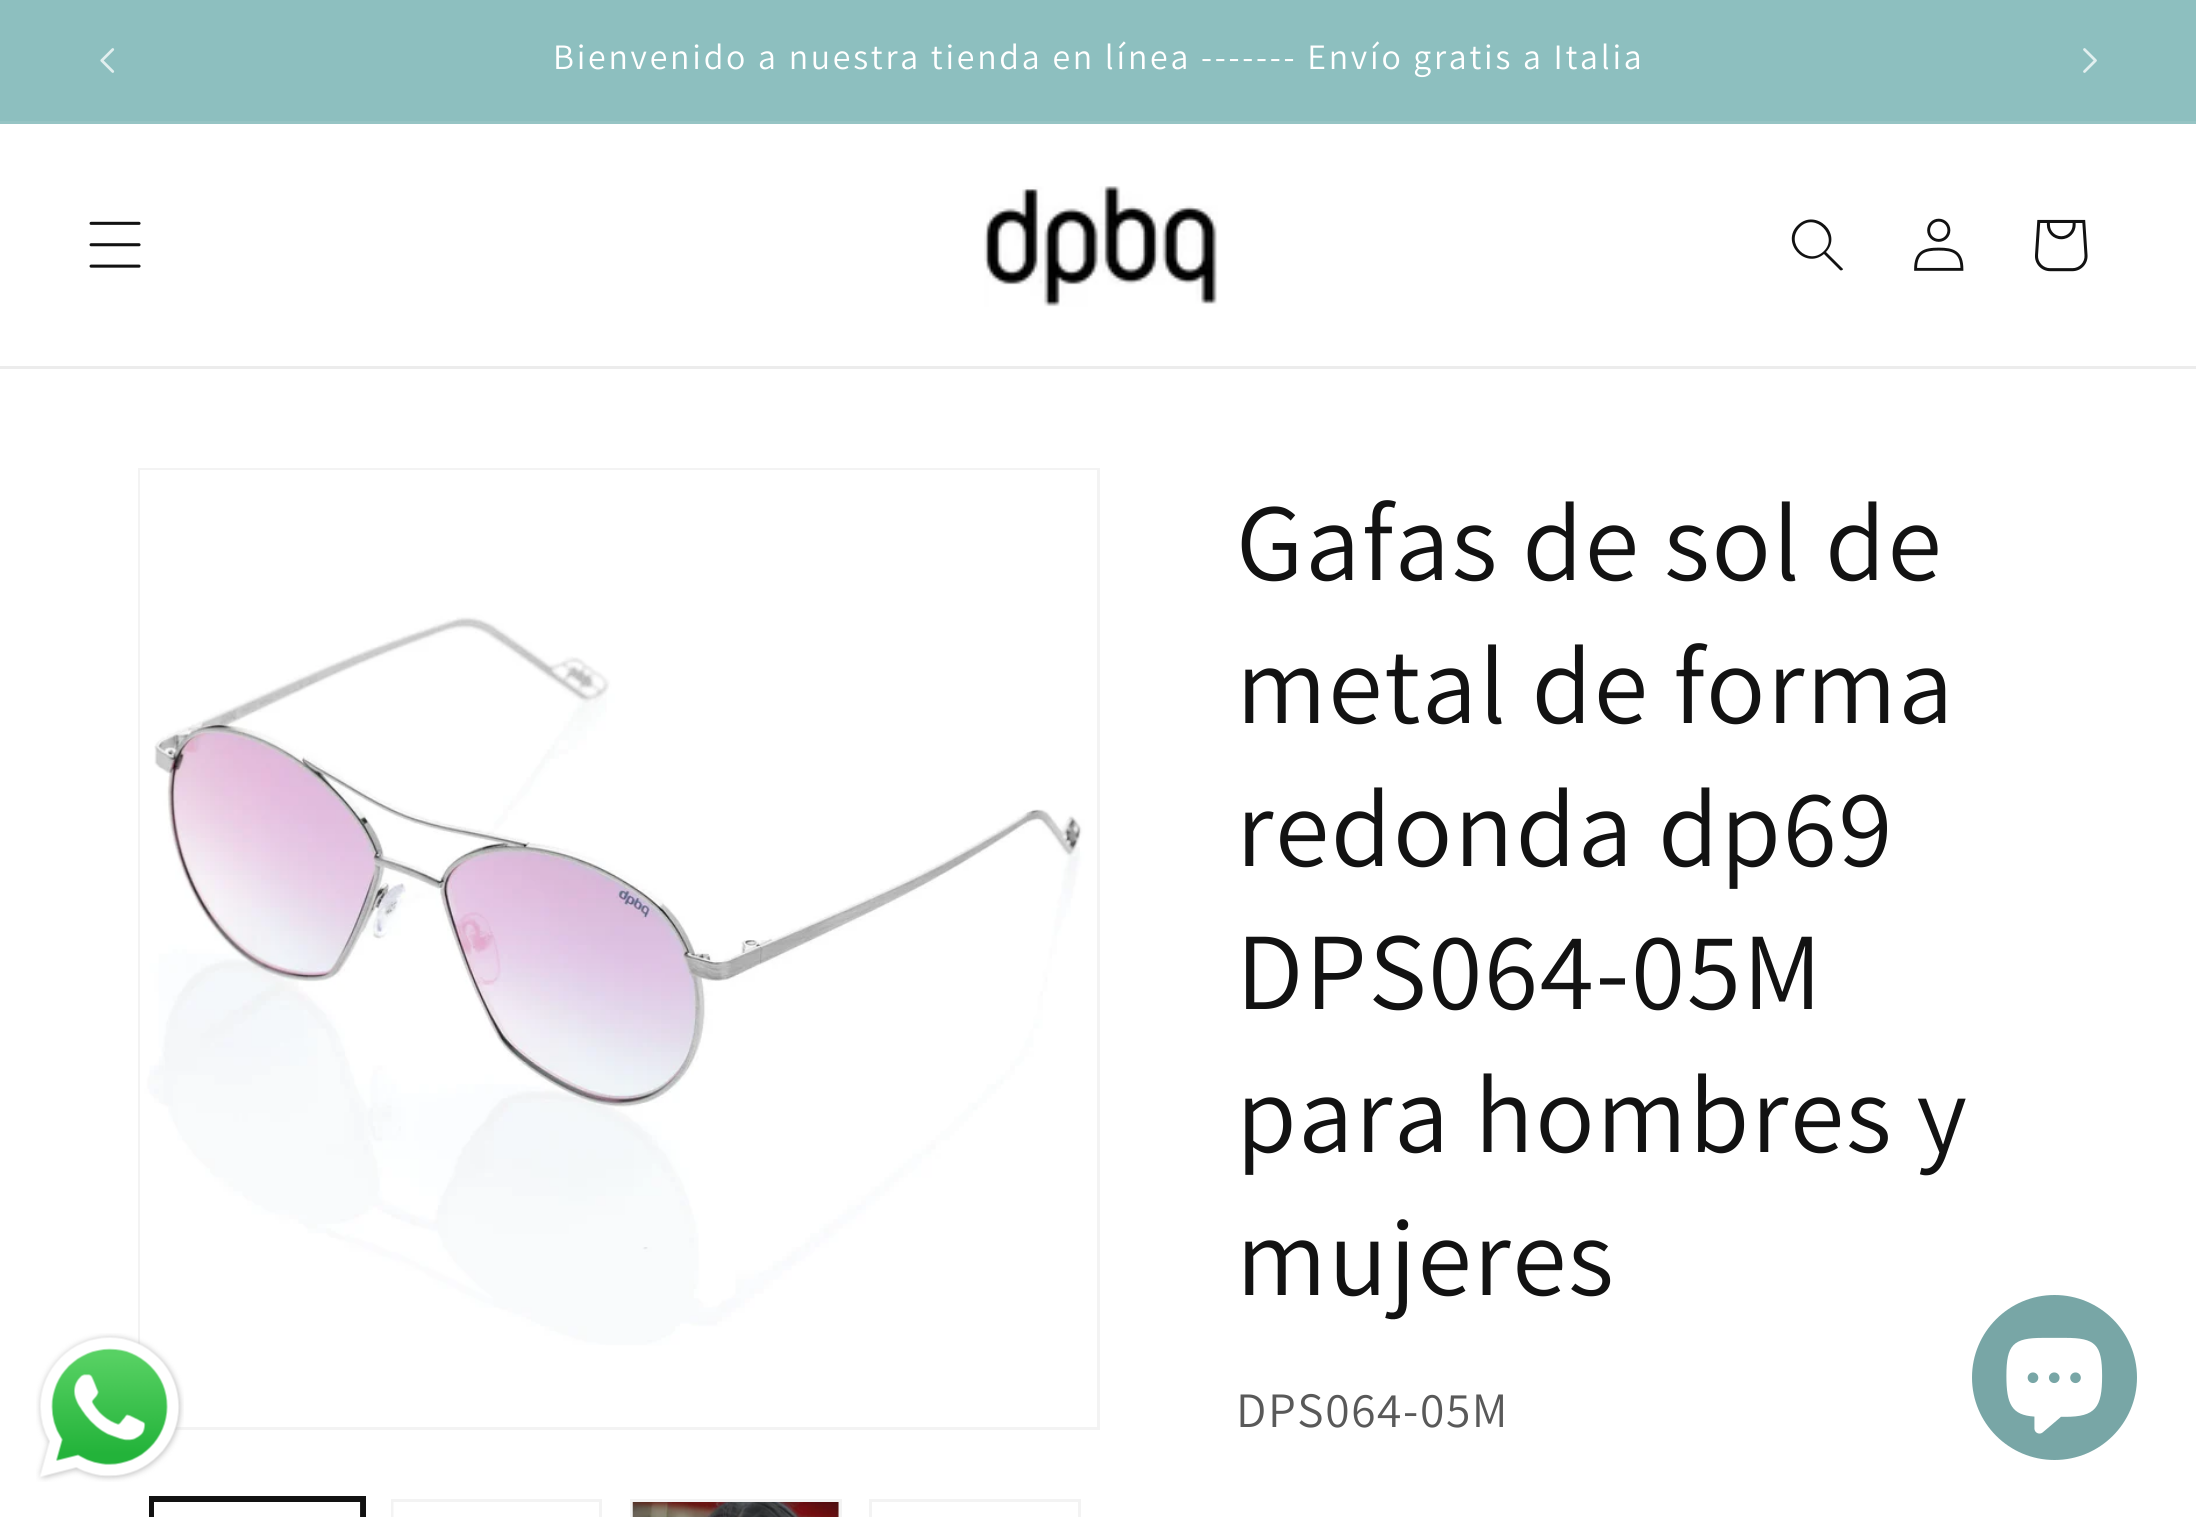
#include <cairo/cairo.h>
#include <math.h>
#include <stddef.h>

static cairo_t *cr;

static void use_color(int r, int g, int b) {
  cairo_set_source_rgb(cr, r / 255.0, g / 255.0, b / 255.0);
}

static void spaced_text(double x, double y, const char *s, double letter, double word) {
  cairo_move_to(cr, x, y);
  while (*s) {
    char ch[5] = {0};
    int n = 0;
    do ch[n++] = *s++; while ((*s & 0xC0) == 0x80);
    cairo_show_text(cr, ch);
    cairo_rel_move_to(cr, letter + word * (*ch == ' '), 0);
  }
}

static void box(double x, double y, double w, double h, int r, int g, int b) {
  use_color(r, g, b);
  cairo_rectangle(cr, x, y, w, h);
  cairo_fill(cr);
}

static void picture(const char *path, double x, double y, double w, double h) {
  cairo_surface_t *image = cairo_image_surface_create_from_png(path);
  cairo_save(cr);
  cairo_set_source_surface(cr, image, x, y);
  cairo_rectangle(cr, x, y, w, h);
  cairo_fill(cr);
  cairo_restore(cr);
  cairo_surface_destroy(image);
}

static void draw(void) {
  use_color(255, 255, 255);
  cairo_paint(cr);
  box(0, 0, 2196, 121, 141, 191, 191);
  box(0, 121, 2196, 3, 150, 196, 196);
  picture("img_01.png", 100, 48, 15, 25);
  picture("img_02.png", 2083, 48, 14, 25);
  box(0, 366, 2196, 3, 236, 236, 236);
  picture("img_03.png", 89, 221, 52, 47);
  picture("img_04.png", 984, 186, 234, 121);
  use_color(18, 18, 18);
  cairo_set_fill_rule(cr, CAIRO_FILL_RULE_EVEN_ODD);
  cairo_new_path(cr);
  cairo_move_to(cr, 1824, 251);
  cairo_curve_to(cr, 1808, 267, 1784, 243, 1800, 227);
  cairo_curve_to(cr, 1815, 212, 1839, 236, 1824, 251);
  cairo_move_to(cr, 1824, 254);
  cairo_curve_to(cr, 1805, 270, 1780, 242, 1798, 225);
  cairo_curve_to(cr, 1816, 208, 1843, 234, 1826, 252);
  cairo_line_to(cr, 1843, 269);
  cairo_curve_to(cr, 1843, 270, 1841, 271, 1840, 270);
  cairo_close_path(cr);
  cairo_fill(cr);
  picture("img_05.png", 1914, 218, 50, 53);
  picture("img_06.png", 2035, 219, 53, 53);
  cairo_rectangle(cr, 139.5, 469.5, 959, 959);
  use_color(243, 243, 243);
  cairo_set_line_width(cr, 3);
  cairo_stroke(cr);
  picture("img_08.png", 140, 470, 957, 957);
  picture("img_07.png", 36, 1333, 148, 149);
  cairo_rectangle(cr, 150.5, 1497.5, 214, 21);
  use_color(18, 18, 18);
  cairo_stroke(cr);
  cairo_rectangle(cr, 152.5, 1500.5, 209, 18);
  cairo_stroke(cr);
  box(360, 1502, 1, 15, 32, 32, 32);
  cairo_rectangle(cr, 392.5, 1500.5, 208, 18);
  use_color(243, 243, 243);
  cairo_stroke(cr);
  box(393, 1502, 1, 15, 249, 249, 249);
  cairo_rectangle(cr, 631.5, 1500.5, 209, 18);
  use_color(243, 243, 243);
  cairo_stroke(cr);
  picture("img_09.png", 632, 1502, 207, 15);
  cairo_rectangle(cr, 870.5, 1500.5, 209, 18);
  cairo_stroke(cr);
  use_color(120, 166, 166);
  cairo_arc(cr, 2054.5, 1377.5, 82.5, 0, 2 * M_PI);
  cairo_fill(cr);
  picture("img_10.png", 2006, 1337, 97, 97);
  cairo_select_font_face(cr, "Assistant", CAIRO_FONT_SLANT_NORMAL, CAIRO_FONT_WEIGHT_NORMAL);
  cairo_set_font_size(cr, 35.75);
  use_color(255, 255, 255);
  spaced_text(553, 69, "Bienvenido a nuestra tienda en línea ------- Envío gratis a Italia", 2.75, 0);
  cairo_set_font_size(cr, 110);
  use_color(18, 18, 18);
  spaced_text(1236, 580, "Gafas de sol de", 1.6, 0);
  spaced_text(1236, 723, "metal de forma", 1.6, 0);
  spaced_text(1236, 866, "redonda dp69", 1.6, 0);
  spaced_text(1236, 1009, "DPS064-05M", 1.6, 0);
  spaced_text(1236, 1152, "para hombres y", 1.6, 0);
  spaced_text(1236, 1295, "mujeres", 1.6, 0);
  cairo_set_font_size(cr, 49.5);
  use_color(89, 89, 89);
  spaced_text(1236, 1427, "DPS064-05M", 1.6, 0);
}

int main(void) {
  cairo_surface_t *surface = cairo_image_surface_create(CAIRO_FORMAT_RGB24, 2196, 1517);
  cr = cairo_create(surface);
  cairo_font_options_t *options = cairo_font_options_create();
  cairo_font_options_set_hint_metrics(options, CAIRO_HINT_METRICS_OFF);
  cairo_font_options_set_hint_style(options, CAIRO_HINT_STYLE_NONE);
  cairo_set_font_options(cr, options);
  cairo_set_miter_limit(cr, 4);
  draw();
  cairo_surface_write_to_png(surface, "out.png");
  cairo_font_options_destroy(options);
  cairo_destroy(cr);
  cairo_surface_destroy(surface);
  return 0;
}
